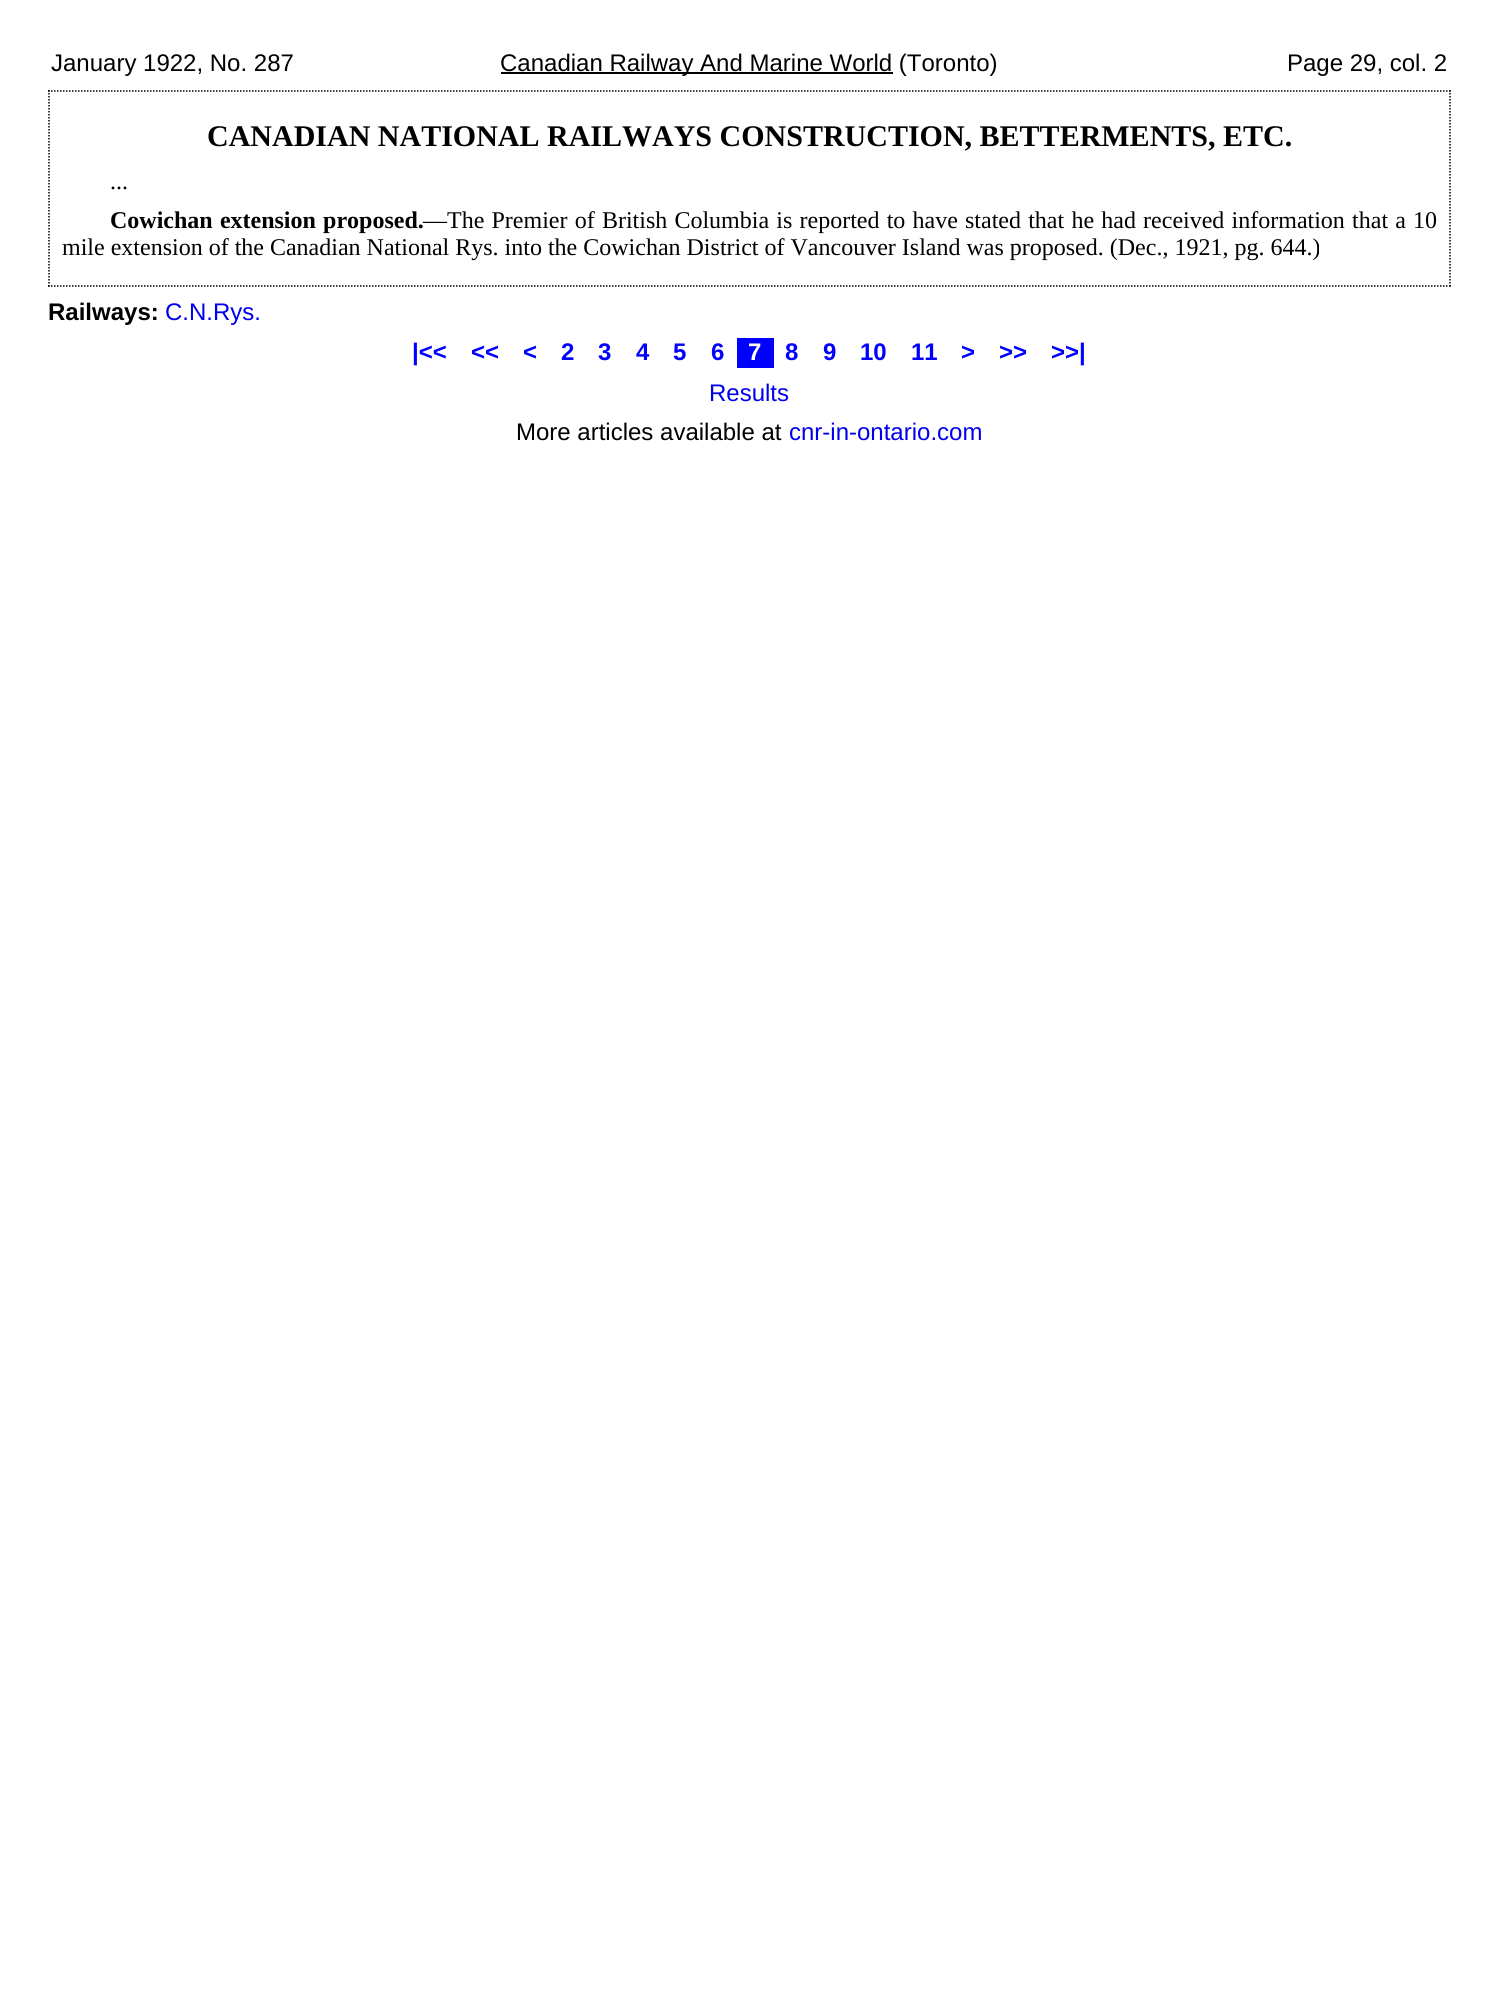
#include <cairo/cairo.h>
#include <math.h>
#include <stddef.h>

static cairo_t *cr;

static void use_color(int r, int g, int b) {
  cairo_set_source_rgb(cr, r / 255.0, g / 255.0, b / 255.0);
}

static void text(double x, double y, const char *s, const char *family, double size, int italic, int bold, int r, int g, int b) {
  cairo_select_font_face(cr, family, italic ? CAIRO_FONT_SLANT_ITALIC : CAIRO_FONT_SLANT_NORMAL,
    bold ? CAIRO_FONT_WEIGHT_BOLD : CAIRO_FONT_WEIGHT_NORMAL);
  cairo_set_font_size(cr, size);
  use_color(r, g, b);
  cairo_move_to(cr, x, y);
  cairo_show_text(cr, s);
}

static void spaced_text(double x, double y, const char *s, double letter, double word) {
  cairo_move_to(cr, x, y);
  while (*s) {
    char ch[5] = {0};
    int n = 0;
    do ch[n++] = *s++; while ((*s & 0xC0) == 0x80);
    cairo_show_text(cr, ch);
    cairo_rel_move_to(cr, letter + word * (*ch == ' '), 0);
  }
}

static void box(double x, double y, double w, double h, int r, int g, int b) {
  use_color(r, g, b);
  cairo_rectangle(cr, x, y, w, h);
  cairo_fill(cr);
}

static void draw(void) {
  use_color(255, 255, 255);
  cairo_paint(cr);
  box(501, 72, 392, 2, 0, 0, 0);
  cairo_new_path(cr);
  cairo_move_to(cr, 48, 91);
  cairo_line_to(cr, 1450.5, 91);
  cairo_set_line_width(cr, 1.5);
  cairo_set_dash(cr, (double[]){1.5, 1.5}, 2, 0);
  cairo_stroke(cr);
  cairo_new_path(cr);
  cairo_move_to(cr, 1450, 90);
  cairo_line_to(cr, 1450, 286.5);
  cairo_stroke(cr);
  cairo_new_path(cr);
  cairo_move_to(cr, 48, 286);
  cairo_line_to(cr, 1450.5, 286);
  cairo_stroke(cr);
  cairo_new_path(cr);
  cairo_move_to(cr, 49, 90);
  cairo_line_to(cr, 49, 286.5);
  cairo_stroke(cr);
  box(737, 338, 37, 30, 0, 0, 255);
  text(51, 71, "January 1922, No. 287", "Liberation Sans", 24, 0, 0, 0, 0, 0);
  text(500, 71, "Canadian Railway And Marine World (Toronto)", "Liberation Sans", 24, 0, 0, 0, 0, 0);
  text(1287, 71, "Page 29, col. 2", "Liberation Sans", 24, 0, 0, 0, 0, 0);
  text(207, 146, "CANADIAN NATIONAL RAILWAYS CONSTRUCTION, BETTERMENTS, ETC.", "Liberation Serif", 30, 0, 1, 0, 0, 0);
  text(110, 189, "...", "Liberation Serif", 24, 0, 0, 0, 0, 0);
  cairo_select_font_face(cr, "Liberation Serif", CAIRO_FONT_SLANT_NORMAL, CAIRO_FONT_WEIGHT_BOLD);
  spaced_text(110, 228, "Cowichan extension proposed.", 0, 1.2);
  cairo_select_font_face(cr, "Liberation Serif", CAIRO_FONT_SLANT_NORMAL, CAIRO_FONT_WEIGHT_NORMAL);
  spaced_text(423, 228, "—The Premier of British Columbia is reported to have stated that he had received information that a 10", 0, 1.2);
  text(62, 255, "mile extension of the Canadian National Rys. into the Cowichan District of Vancouver Island was proposed. (Dec., 1921, pg. 644.)", "Liberation Serif", 24, 0, 0, 0, 0, 0);
  text(48, 320, "Railways:", "Liberation Sans", 24, 0, 1, 0, 0, 0);
  text(165, 320, "C.N.Rys.", "Liberation Sans", 24, 0, 0, 0, 0, 238);
  text(412, 360, "|<<", "Liberation Sans", 24, 0, 1, 0, 0, 255);
  text(471, 360, "<<", "Liberation Sans", 24, 0, 1, 0, 0, 255);
  text(523, 360, "<", "Liberation Sans", 24, 0, 1, 0, 0, 255);
  text(561, 360, "2", "Liberation Sans", 24, 0, 1, 0, 0, 255);
  text(598, 360, "3", "Liberation Sans", 24, 0, 1, 0, 0, 255);
  text(636, 360, "4", "Liberation Sans", 24, 0, 1, 0, 0, 255);
  text(673, 360, "5", "Liberation Sans", 24, 0, 1, 0, 0, 255);
  text(711, 360, "6", "Liberation Sans", 24, 0, 1, 0, 0, 255);
  text(748, 360, "7", "Liberation Sans", 24, 0, 1, 255, 255, 255);
  text(785, 360, "8", "Liberation Sans", 24, 0, 1, 0, 0, 255);
  text(823, 360, "9", "Liberation Sans", 24, 0, 1, 0, 0, 255);
  text(860, 360, "10", "Liberation Sans", 24, 0, 1, 0, 0, 255);
  text(911, 360, "11", "Liberation Sans", 24, 0, 1, 0, 0, 255);
  text(961, 360, ">", "Liberation Sans", 24, 0, 1, 0, 0, 255);
  text(999, 360, ">>", "Liberation Sans", 24, 0, 1, 0, 0, 255);
  text(1051, 360, ">>|", "Liberation Sans", 24, 0, 1, 0, 0, 255);
  text(709, 401, "Results", "Liberation Sans", 24, 0, 0, 0, 0, 238);
  text(516, 440, "More articles available at", "Liberation Sans", 24, 0, 0, 0, 0, 0);
  text(789, 440, "cnr-in-ontario.com", "Liberation Sans", 24, 0, 0, 0, 0, 238);
}

int main(void) {
  cairo_surface_t *surface = cairo_image_surface_create(CAIRO_FORMAT_RGB24, 1498, 2004);
  cr = cairo_create(surface);
  cairo_font_options_t *options = cairo_font_options_create();
  cairo_font_options_set_hint_metrics(options, CAIRO_HINT_METRICS_OFF);
  cairo_font_options_set_hint_style(options, CAIRO_HINT_STYLE_NONE);
  cairo_set_font_options(cr, options);
  cairo_set_miter_limit(cr, 4);
  draw();
  cairo_surface_write_to_png(surface, "out.png");
  cairo_font_options_destroy(options);
  cairo_destroy(cr);
  cairo_surface_destroy(surface);
  return 0;
}
